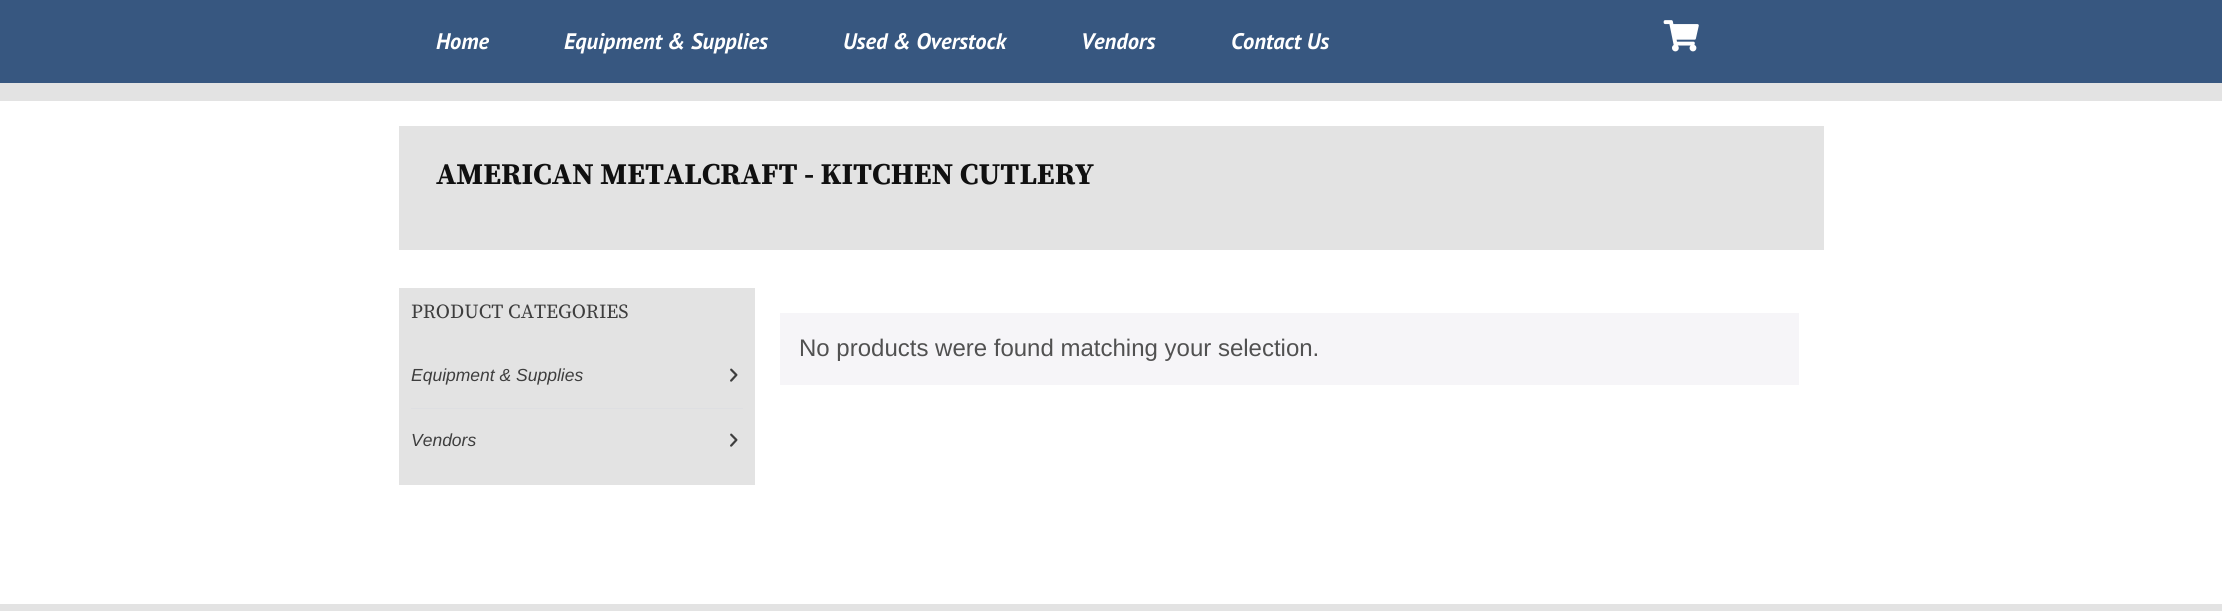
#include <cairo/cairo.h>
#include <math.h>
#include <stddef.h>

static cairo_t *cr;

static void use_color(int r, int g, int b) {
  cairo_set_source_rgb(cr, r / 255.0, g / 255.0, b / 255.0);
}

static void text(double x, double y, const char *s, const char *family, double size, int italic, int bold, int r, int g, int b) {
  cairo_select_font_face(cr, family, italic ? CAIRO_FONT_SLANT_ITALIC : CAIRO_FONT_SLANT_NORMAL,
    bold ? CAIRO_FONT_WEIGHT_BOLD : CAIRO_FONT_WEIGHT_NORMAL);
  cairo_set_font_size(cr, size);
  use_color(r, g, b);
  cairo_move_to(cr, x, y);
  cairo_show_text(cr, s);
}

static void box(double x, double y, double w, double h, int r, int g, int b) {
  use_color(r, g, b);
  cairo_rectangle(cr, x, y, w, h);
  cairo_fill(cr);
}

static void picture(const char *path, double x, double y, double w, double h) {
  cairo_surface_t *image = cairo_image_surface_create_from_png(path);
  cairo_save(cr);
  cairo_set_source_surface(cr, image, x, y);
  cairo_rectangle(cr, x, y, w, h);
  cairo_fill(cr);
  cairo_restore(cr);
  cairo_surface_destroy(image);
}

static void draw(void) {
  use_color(255, 255, 255);
  cairo_paint(cr);
  box(0, 0, 2222, 83, 55, 87, 128);
  picture("img_01.png", 1663, 20, 36, 32);
  box(0, 83, 2222, 18, 227, 227, 227);
  box(399, 126, 1425, 124, 227, 227, 227);
  box(399, 288, 356, 197, 227, 227, 227);
  picture("img_02.png", 730, 368, 8, 14);
  box(411, 408, 332, 1, 222, 223, 226);
  picture("img_02.png", 730, 433, 8, 14);
  box(780, 313, 1019, 72, 246, 245, 248);
  box(0, 604, 2222, 7, 227, 227, 227);
  text(436, 49, "Home", "PT Sans", 22.5, 1, 1, 255, 255, 255);
  text(564, 49, "Equipment & Supplies", "PT Sans", 22.5, 1, 1, 255, 255, 255);
  text(843, 49, "Used & Overstock", "PT Sans", 22.5, 1, 1, 255, 255, 255);
  text(1081, 49, "Vendors", "PT Sans", 22.5, 1, 1, 255, 255, 255);
  text(1231, 49, "Contact Us", "PT Sans", 22.5, 1, 1, 255, 255, 255);
  text(436, 184, "AMERICAN METALCRAFT - KITCHEN CUTLERY", "Source Serif Pro", 30, 0, 1, 16, 16, 16);
  text(411, 318, "PRODUCT CATEGORIES", "Source Serif Pro", 20, 0, 0, 62, 62, 62);
  text(411, 381, "Equipment & Supplies", "Liberation Sans", 17.5, 1, 0, 62, 62, 62);
  text(411, 446, "Vendors", "Liberation Sans", 17.5, 1, 0, 62, 62, 62);
  text(799, 356, "No products were found matching your selection.", "Liberation Sans", 24, 0, 0, 81, 81, 81);
}

int main(void) {
  cairo_surface_t *surface = cairo_image_surface_create(CAIRO_FORMAT_RGB24, 2222, 611);
  cr = cairo_create(surface);
  cairo_font_options_t *options = cairo_font_options_create();
  cairo_font_options_set_hint_metrics(options, CAIRO_HINT_METRICS_OFF);
  cairo_font_options_set_hint_style(options, CAIRO_HINT_STYLE_NONE);
  cairo_set_font_options(cr, options);
  cairo_set_miter_limit(cr, 4);
  draw();
  cairo_surface_write_to_png(surface, "out.png");
  cairo_font_options_destroy(options);
  cairo_destroy(cr);
  cairo_surface_destroy(surface);
  return 0;
}
